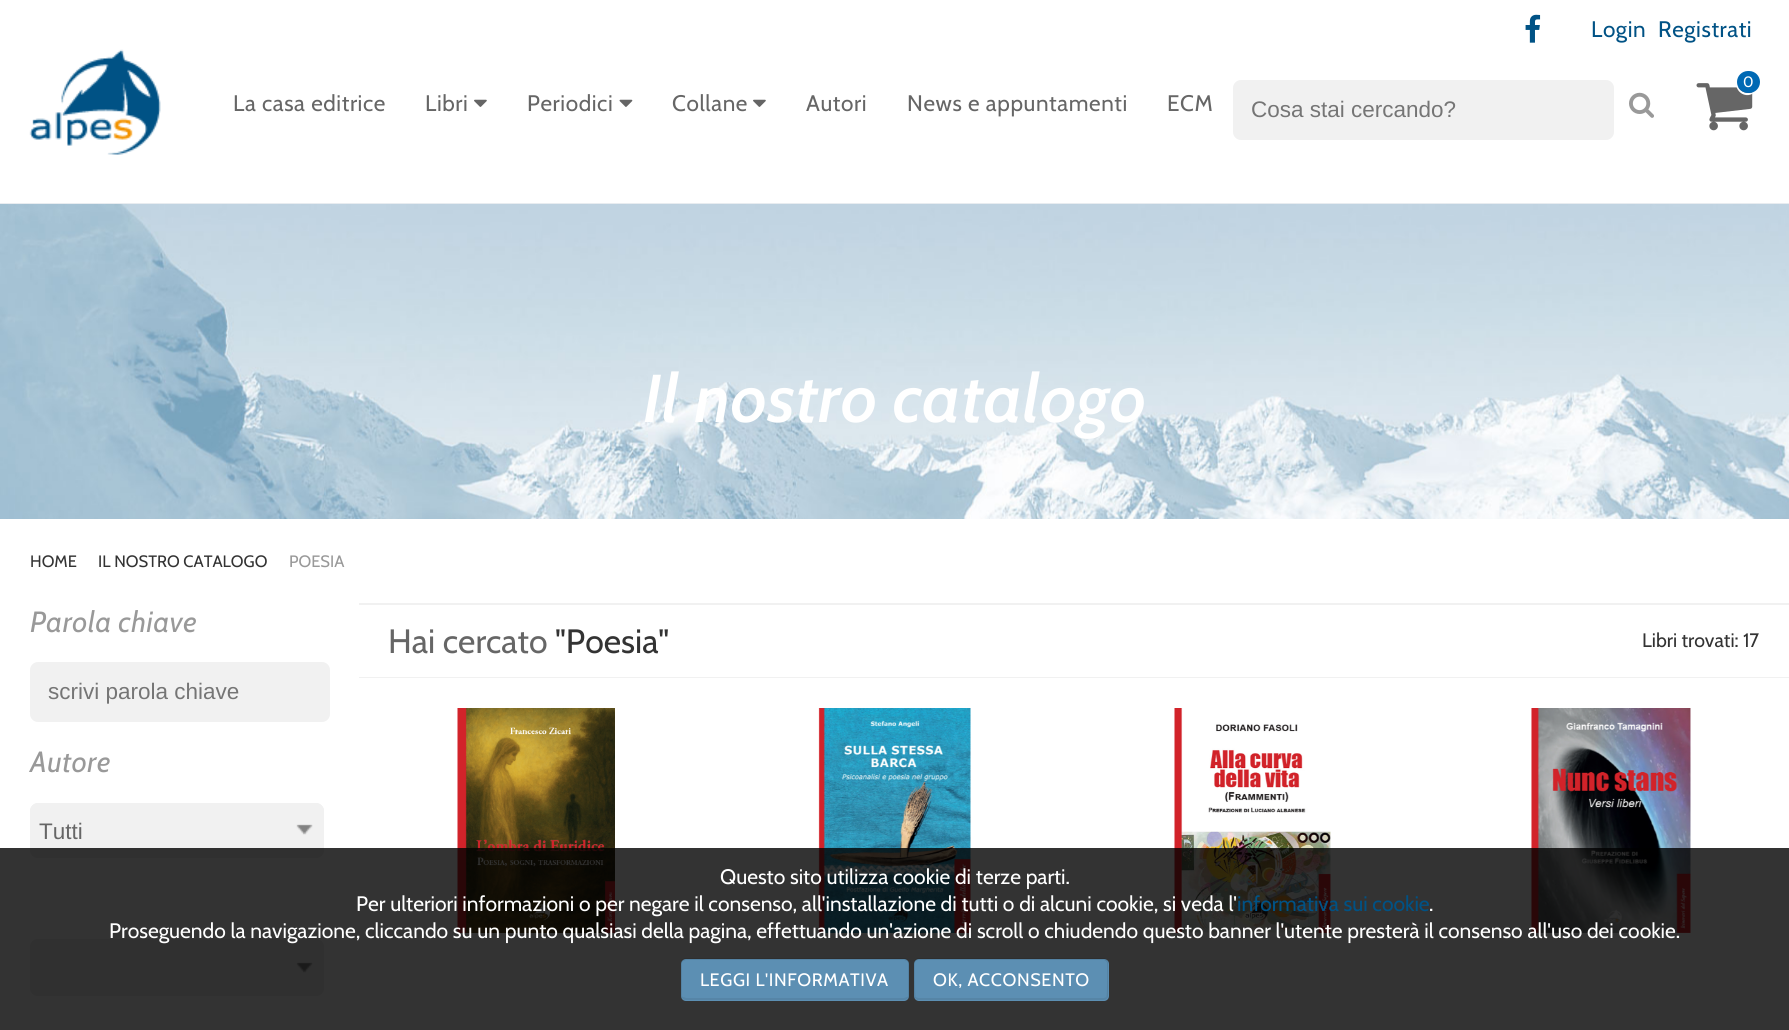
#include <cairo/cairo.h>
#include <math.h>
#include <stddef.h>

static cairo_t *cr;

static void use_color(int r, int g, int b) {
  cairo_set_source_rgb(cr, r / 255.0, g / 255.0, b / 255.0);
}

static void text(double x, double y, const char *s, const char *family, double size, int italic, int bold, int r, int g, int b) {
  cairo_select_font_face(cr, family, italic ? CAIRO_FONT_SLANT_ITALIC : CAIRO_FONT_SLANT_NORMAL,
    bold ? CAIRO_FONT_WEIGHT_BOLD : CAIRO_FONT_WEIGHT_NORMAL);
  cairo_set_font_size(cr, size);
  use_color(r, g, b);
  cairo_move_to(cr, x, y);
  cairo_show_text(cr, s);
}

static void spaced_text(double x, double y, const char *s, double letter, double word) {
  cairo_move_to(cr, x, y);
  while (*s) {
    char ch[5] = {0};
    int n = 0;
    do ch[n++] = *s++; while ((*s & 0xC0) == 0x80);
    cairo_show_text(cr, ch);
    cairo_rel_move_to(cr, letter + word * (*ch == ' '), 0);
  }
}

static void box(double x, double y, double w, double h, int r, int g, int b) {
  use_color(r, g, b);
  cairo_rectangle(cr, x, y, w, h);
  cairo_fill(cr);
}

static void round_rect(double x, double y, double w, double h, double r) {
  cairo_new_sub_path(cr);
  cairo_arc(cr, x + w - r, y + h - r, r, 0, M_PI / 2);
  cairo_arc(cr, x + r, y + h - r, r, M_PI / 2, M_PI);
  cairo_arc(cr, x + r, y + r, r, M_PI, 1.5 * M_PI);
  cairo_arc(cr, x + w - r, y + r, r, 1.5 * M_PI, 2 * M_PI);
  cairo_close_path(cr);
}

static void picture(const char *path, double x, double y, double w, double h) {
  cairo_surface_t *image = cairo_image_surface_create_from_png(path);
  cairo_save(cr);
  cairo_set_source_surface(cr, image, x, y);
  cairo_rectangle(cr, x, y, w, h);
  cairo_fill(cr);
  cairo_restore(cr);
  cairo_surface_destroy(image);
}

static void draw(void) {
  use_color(232, 236, 240);
  cairo_paint(cr);
  box(0, 0, 1789, 203, 255, 255, 255);
  picture("img_01.png", 1525, 14, 16, 29);
  picture("img_02.png", 29, 49, 132, 106);
  picture("img_03.png", 1696, 83, 57, 48);
  cairo_new_path(cr);
  cairo_move_to(cr, 1738, 77);
  cairo_curve_to(cr, 1736.5, 79, 1736, 81, 1736, 83);
  cairo_curve_to(cr, 1736, 94.5, 1749.5, 99.5, 1756, 90.5);
  cairo_curve_to(cr, 1754, 92, 1751.5, 93, 1749, 93);
  cairo_curve_to(cr, 1742.5, 93, 1737.5, 89.5, 1737, 82.5);
  cairo_curve_to(cr, 1737, 80.5, 1737, 78.5, 1738, 77);
  cairo_close_path(cr);
  cairo_fill(cr);
  use_color(0, 105, 180);
  round_rect(1737, 71, 23, 22, 11);
  cairo_fill(cr);
  picture("img_04.png", 474, 99, 13, 8);
  picture("img_05.png", 619, 99, 14, 8);
  picture("img_04.png", 753, 99, 13, 8);
  use_color(241, 241, 241);
  round_rect(1233, 80, 381, 60, 8);
  cairo_fill(cr);
  picture("img_06.png", 1629, 92, 25, 26);
  picture("img_07.png", 0, 204, 1789, 315);
  box(0, 519, 1789, 511, 255, 255, 255);
  use_color(241, 241, 241);
  round_rect(30, 662, 300, 60, 8);
  cairo_fill(cr);
  round_rect(30, 803, 294, 55, 8);
  cairo_fill(cr);
  picture("img_08.png", 296, 824, 17, 11);
  round_rect(31, 804, 292, 53, 7);
  cairo_stroke(cr);
  round_rect(30, 939, 294, 57, 8);
  cairo_fill(cr);
  picture("img_08.png", 296, 962, 17, 11);
  round_rect(31, 940, 292, 55, 7);
  cairo_stroke(cr);
  box(359, 603, 1430, 2, 241, 241, 241);
  box(359, 677, 1430, 1, 241, 241, 241);
  picture("img_09.png", 457, 708, 158, 225);
  picture("img_10.png", 818, 708, 153, 225);
  picture("img_11.png", 1174, 708, 157, 225);
  picture("img_12.png", 1531, 708, 160, 225);
  cairo_set_source_rgba(cr, 0, 0, 0, 0.8);
  cairo_rectangle(cr, 0, 848, 1789, 182);
  cairo_fill(cr);
  cairo_set_source_rgba(cr, 0.404, 0.651, 0.827, 0.8);
  round_rect(681, 959, 228, 42, 5);
  cairo_fill(cr);
  cairo_set_source_rgba(cr, 0, 0, 0, 0.09);
  cairo_new_path(cr);
  cairo_move_to(cr, 686, 960);
  cairo_line_to(cr, 683, 961);
  cairo_line_to(cr, 682, 960);
  cairo_line_to(cr, 684, 958);
  cairo_line_to(cr, 906, 958);
  cairo_line_to(cr, 908, 960);
  cairo_line_to(cr, 907, 961);
  cairo_line_to(cr, 904, 960);
  cairo_close_path(cr);
  cairo_fill(cr);
  cairo_new_path(cr);
  cairo_move_to(cr, 909, 996);
  cairo_line_to(cr, 909, 963);
  cairo_curve_to(cr, 909, 962, 908.5, 961, 907.5, 960);
  cairo_line_to(cr, 907, 961);
  cairo_line_to(cr, 908, 962.5);
  cairo_line_to(cr, 908, 996);
  cairo_line_to(cr, 907.5, 997);
  cairo_line_to(cr, 908, 998.5);
  cairo_curve_to(cr, 908.5, 997.5, 909, 997, 909, 996);
  cairo_close_path(cr);
  cairo_fill(cr);
  cairo_set_source_rgba(cr, 0, 0, 0, 0.07);
  cairo_new_path(cr);
  cairo_move_to(cr, 908, 998);
  cairo_curve_to(cr, 907, 999, 906, 1000, 904, 1000);
  cairo_line_to(cr, 686, 1000);
  cairo_curve_to(cr, 684, 1000, 683, 999, 682, 998);
  cairo_line_to(cr, 683, 997);
  cairo_line_to(cr, 686, 998);
  cairo_line_to(cr, 904, 998);
  cairo_line_to(cr, 907, 997);
  cairo_close_path(cr);
  cairo_fill(cr);
  cairo_set_source_rgba(cr, 0, 0, 0, 0.09);
  cairo_new_path(cr);
  cairo_move_to(cr, 681, 963);
  cairo_line_to(cr, 681, 996);
  cairo_curve_to(cr, 681, 997, 681.5, 997.5, 682, 998.5);
  cairo_line_to(cr, 682.5, 997);
  cairo_line_to(cr, 682, 996);
  cairo_line_to(cr, 682, 962.5);
  cairo_line_to(cr, 683, 961);
  cairo_line_to(cr, 682.5, 960);
  cairo_curve_to(cr, 681.5, 961, 681, 962, 681, 963);
  cairo_close_path(cr);
  cairo_fill(cr);
  cairo_set_source_rgba(cr, 0.404, 0.651, 0.827, 0.8);
  round_rect(914, 959, 195, 42, 5);
  cairo_fill(cr);
  cairo_set_source_rgba(cr, 0, 0, 0, 0.09);
  cairo_new_path(cr);
  cairo_move_to(cr, 918, 960);
  cairo_line_to(cr, 916, 961);
  cairo_line_to(cr, 915, 960);
  cairo_line_to(cr, 917, 958);
  cairo_line_to(cr, 1105, 958);
  cairo_line_to(cr, 1107, 960);
  cairo_line_to(cr, 1106, 961);
  cairo_line_to(cr, 1104, 960);
  cairo_close_path(cr);
  cairo_fill(cr);
  cairo_new_path(cr);
  cairo_move_to(cr, 1107, 960);
  cairo_curve_to(cr, 1107.5, 961, 1108, 962, 1108, 963);
  cairo_line_to(cr, 1108, 996);
  cairo_curve_to(cr, 1108, 996.5, 1107.5, 997.5, 1107.5, 998);
  cairo_line_to(cr, 1106.5, 997);
  cairo_curve_to(cr, 1107, 996, 1107.5, 965, 1107, 962.5);
  cairo_line_to(cr, 1106, 961);
  cairo_close_path(cr);
  cairo_fill(cr);
  use_color(86, 133, 166);
  cairo_new_path(cr);
  cairo_move_to(cr, 1107, 998);
  cairo_curve_to(cr, 1107, 999, 1105, 1000, 1104, 1000);
  cairo_line_to(cr, 917, 1000);
  cairo_line_to(cr, 915, 998);
  cairo_line_to(cr, 915, 997);
  cairo_line_to(cr, 918, 998);
  cairo_line_to(cr, 1104, 998);
  cairo_line_to(cr, 1107, 997);
  cairo_close_path(cr);
  cairo_fill(cr);
  cairo_set_source_rgba(cr, 0, 0, 0, 0.09);
  cairo_new_path(cr);
  cairo_move_to(cr, 914.5, 998);
  cairo_curve_to(cr, 914.5, 997.5, 914, 996.5, 914, 996);
  cairo_line_to(cr, 914, 963);
  cairo_curve_to(cr, 914, 962, 914.5, 961, 915, 960);
  cairo_line_to(cr, 916, 961);
  cairo_line_to(cr, 915, 962.5);
  cairo_curve_to(cr, 914.5, 965, 915, 996, 915.5, 997);
  cairo_close_path(cr);
  cairo_fill(cr);
  cairo_select_font_face(cr, "Cabin", CAIRO_FONT_SLANT_NORMAL, CAIRO_FONT_WEIGHT_NORMAL);
  cairo_set_font_size(cr, 22.5);
  use_color(0, 82, 133);
  spaced_text(1591, 37, "Login", 0.6, 0);
  spaced_text(1658, 37, "Registrati", 0.6, 0);
  text(1743, 87, "0", "Cabin", 15, 0, 0, 255, 255, 255);
  cairo_set_font_size(cr, 22.5);
  use_color(102, 102, 102);
  spaced_text(233, 111, "La casa editrice", 0.6, 0);
  spaced_text(425, 111, "Libri", 0.6, 0);
  spaced_text(527, 111, "Periodici", 0.6, 0);
  spaced_text(672, 111, "Collane", 0.6, 0);
  spaced_text(806, 111, "Autori", 0.6, 0);
  spaced_text(907, 111, "News e appuntamenti", 0.6, 0);
  spaced_text(1167, 111, "ECM", 0.6, 0);
  text(1251, 117, "Cosa stai cercando?", "Liberation Sans", 22.5, 0, 0, 117, 117, 117);
  cairo_select_font_face(cr, "Cabin SemiBold", CAIRO_FONT_SLANT_ITALIC, CAIRO_FONT_WEIGHT_NORMAL);
  cairo_set_font_size(cr, 67.5);
  use_color(255, 255, 255);
  spaced_text(643, 422, "Il nostro catalogo", 0.6, 0);
  text(30, 567, "HOME", "Cabin", 16.5, 0, 0, 51, 51, 51);
  text(98, 567, "IL NOSTRO CATALOGO", "Cabin", 16.5, 0, 0, 51, 51, 51);
  text(289, 567, "POESIA", "Cabin", 16.5, 0, 0, 153, 153, 153);
  cairo_select_font_face(cr, "Cabin", CAIRO_FONT_SLANT_ITALIC, CAIRO_FONT_WEIGHT_NORMAL);
  cairo_set_font_size(cr, 29.25);
  spaced_text(30, 632, "Parola chiave", 0.6, 0);
  text(48, 699, "scrivi parola chiave", "Liberation Sans", 22.5, 0, 0, 117, 117, 117);
  cairo_select_font_face(cr, "Cabin", CAIRO_FONT_SLANT_ITALIC, CAIRO_FONT_WEIGHT_NORMAL);
  cairo_set_font_size(cr, 29.25);
  use_color(153, 153, 153);
  spaced_text(30, 772, "Autore", 0.6, 0);
  text(39, 839, "Tutti", "Liberation Sans", 22.5, 0, 0, 102, 102, 102);
  text(388, 653, "Hai cercato", "Cabin", 33.75, 0, 0, 102, 102, 102);
  text(555, 653, "\"Poesia\"", "Cabin", 33.75, 0, 0, 51, 51, 51);
  text(1642, 647, "Libri trovati: 17", "Cabin", 19.5, 0, 0, 51, 51, 51);
  text(720, 884, "Questo sito utilizza cookie di terze parti.", "Cabin", 21, 0, 0, 255, 255, 255);
  text(356, 911, "Per ulteriori informazioni o per negare il consenso, all'installazione di tutti o di alcuni cookie, si veda l'", "Cabin", 21, 0, 0, 255, 255, 255);
  text(1237, 911, "informativa sui cookie", "Cabin", 21, 0, 0, 0, 82, 133);
  text(1429, 911, ".", "Cabin", 21, 0, 0, 255, 255, 255);
  text(109, 938, "Proseguendo la navigazione, cliccando su un punto qualsiasi della pagina, effettuando un'azione di scroll o chiudendo questo banner l'utente presterà il consenso all'uso dei cookie.", "Cabin", 21, 0, 0, 255, 255, 255);
  cairo_set_font_size(cr, 18);
  spaced_text(700, 986, "LEGGI L'INFORMATIVA", 0.6, 0);
  spaced_text(933, 986, "OK, ACCONSENTO", 0.6, 0);
}

int main(void) {
  cairo_surface_t *surface = cairo_image_surface_create(CAIRO_FORMAT_RGB24, 1789, 1030);
  cr = cairo_create(surface);
  cairo_font_options_t *options = cairo_font_options_create();
  cairo_font_options_set_hint_metrics(options, CAIRO_HINT_METRICS_OFF);
  cairo_font_options_set_hint_style(options, CAIRO_HINT_STYLE_NONE);
  cairo_set_font_options(cr, options);
  cairo_set_miter_limit(cr, 4);
  draw();
  cairo_surface_write_to_png(surface, "out.png");
  cairo_font_options_destroy(options);
  cairo_destroy(cr);
  cairo_surface_destroy(surface);
  return 0;
}
